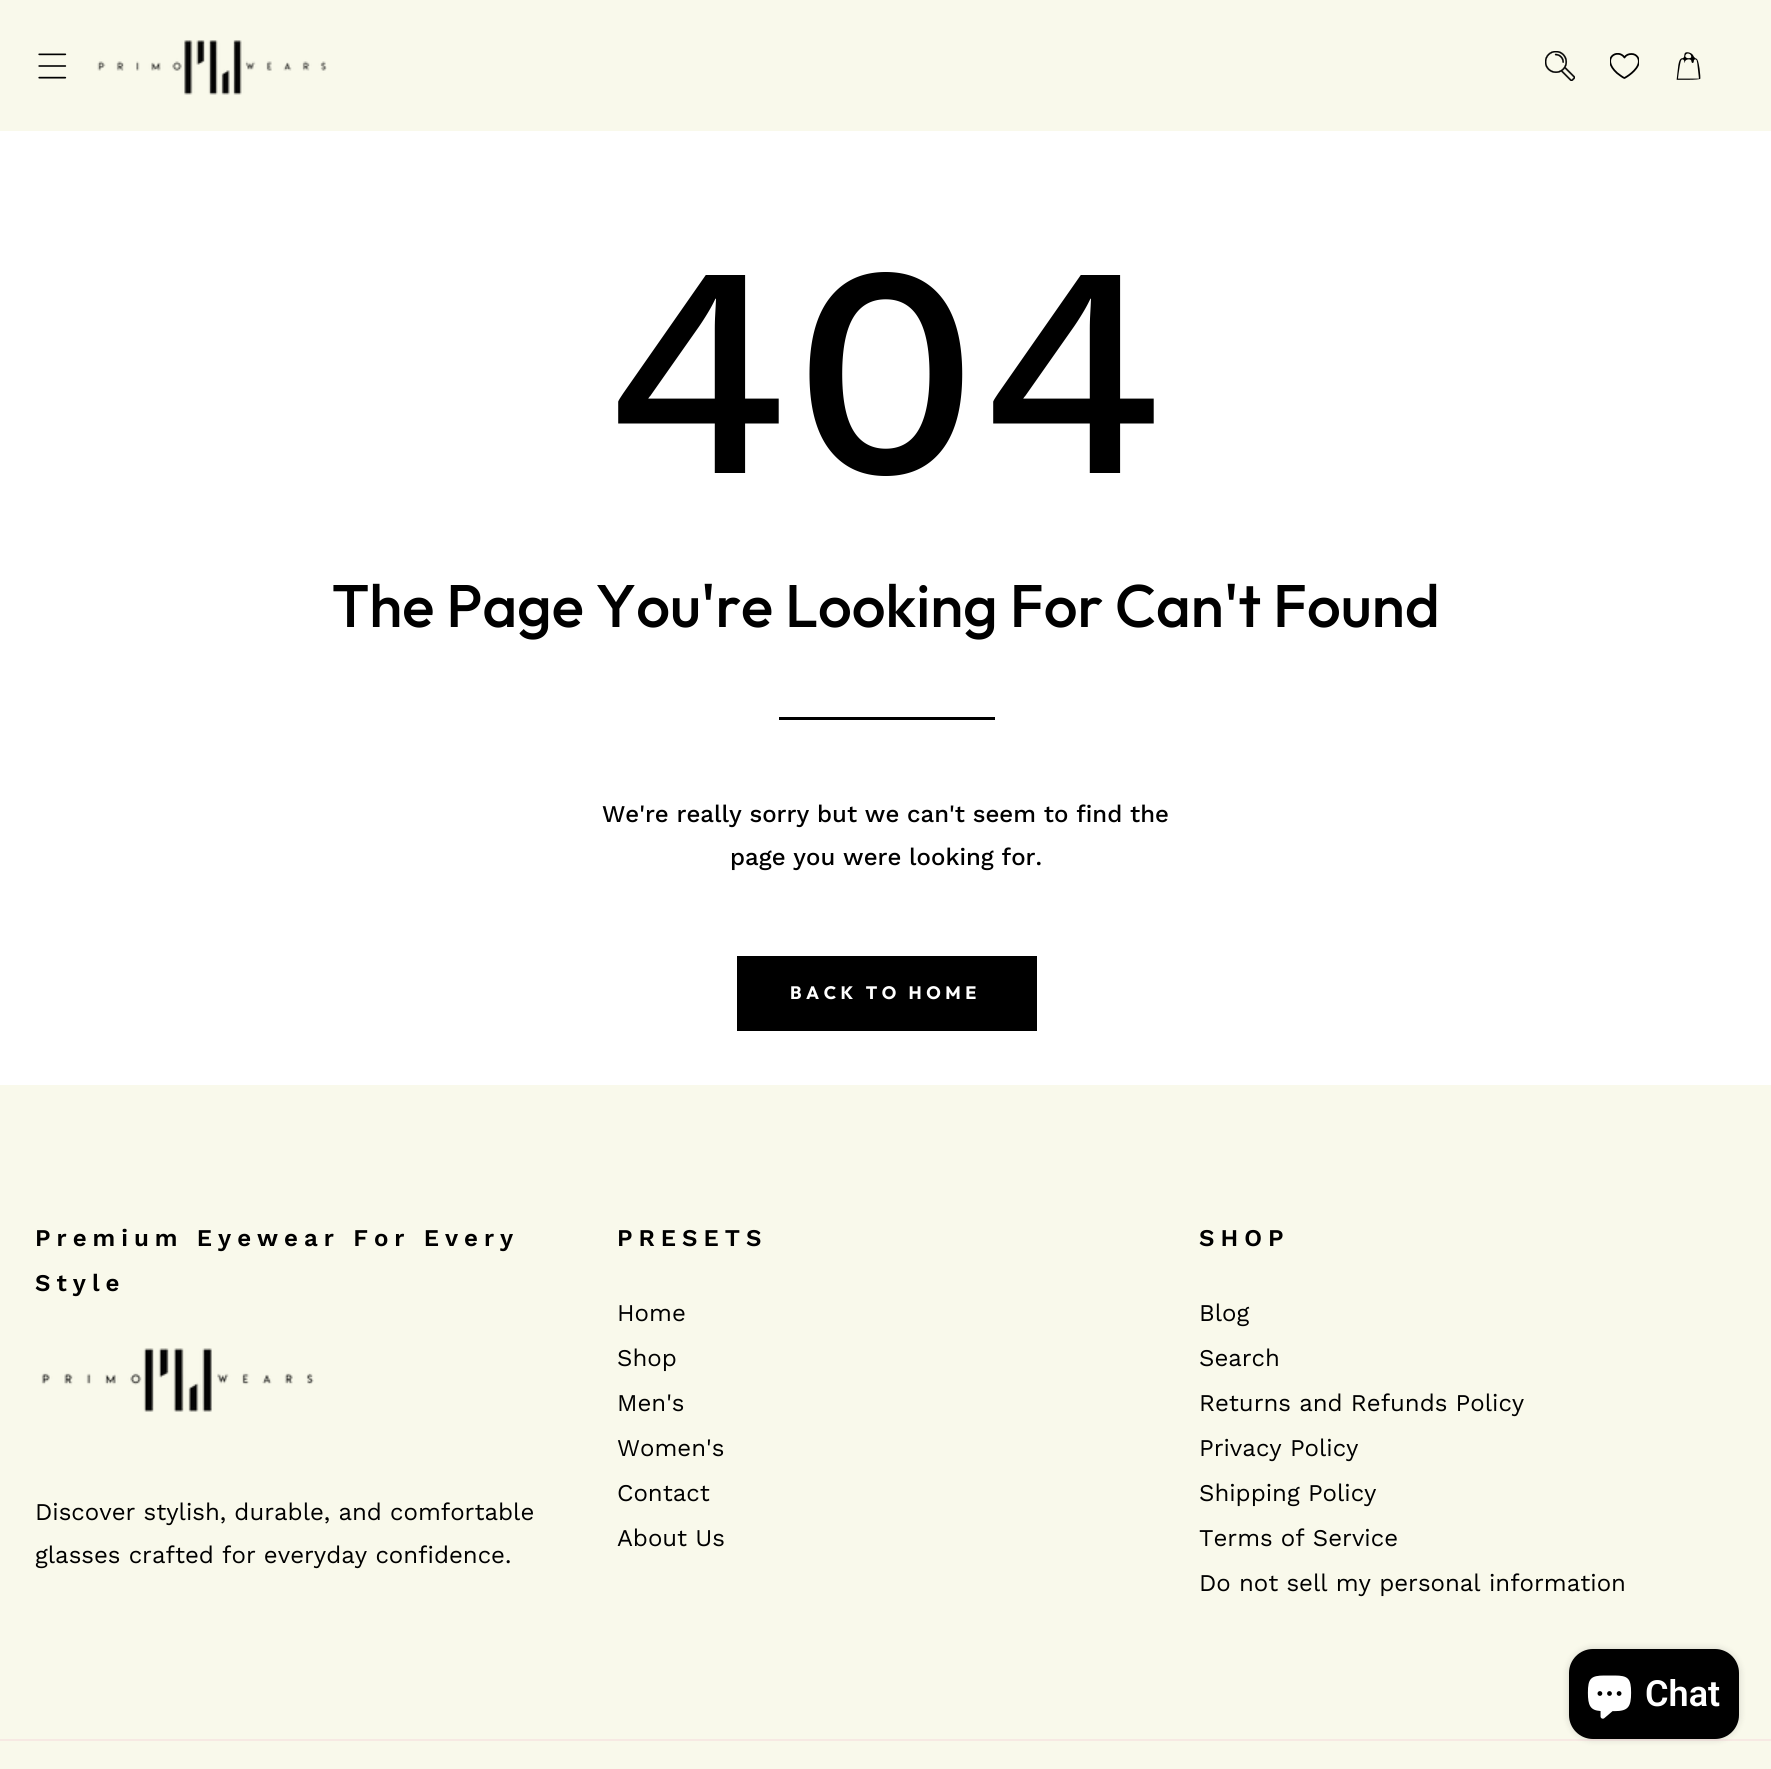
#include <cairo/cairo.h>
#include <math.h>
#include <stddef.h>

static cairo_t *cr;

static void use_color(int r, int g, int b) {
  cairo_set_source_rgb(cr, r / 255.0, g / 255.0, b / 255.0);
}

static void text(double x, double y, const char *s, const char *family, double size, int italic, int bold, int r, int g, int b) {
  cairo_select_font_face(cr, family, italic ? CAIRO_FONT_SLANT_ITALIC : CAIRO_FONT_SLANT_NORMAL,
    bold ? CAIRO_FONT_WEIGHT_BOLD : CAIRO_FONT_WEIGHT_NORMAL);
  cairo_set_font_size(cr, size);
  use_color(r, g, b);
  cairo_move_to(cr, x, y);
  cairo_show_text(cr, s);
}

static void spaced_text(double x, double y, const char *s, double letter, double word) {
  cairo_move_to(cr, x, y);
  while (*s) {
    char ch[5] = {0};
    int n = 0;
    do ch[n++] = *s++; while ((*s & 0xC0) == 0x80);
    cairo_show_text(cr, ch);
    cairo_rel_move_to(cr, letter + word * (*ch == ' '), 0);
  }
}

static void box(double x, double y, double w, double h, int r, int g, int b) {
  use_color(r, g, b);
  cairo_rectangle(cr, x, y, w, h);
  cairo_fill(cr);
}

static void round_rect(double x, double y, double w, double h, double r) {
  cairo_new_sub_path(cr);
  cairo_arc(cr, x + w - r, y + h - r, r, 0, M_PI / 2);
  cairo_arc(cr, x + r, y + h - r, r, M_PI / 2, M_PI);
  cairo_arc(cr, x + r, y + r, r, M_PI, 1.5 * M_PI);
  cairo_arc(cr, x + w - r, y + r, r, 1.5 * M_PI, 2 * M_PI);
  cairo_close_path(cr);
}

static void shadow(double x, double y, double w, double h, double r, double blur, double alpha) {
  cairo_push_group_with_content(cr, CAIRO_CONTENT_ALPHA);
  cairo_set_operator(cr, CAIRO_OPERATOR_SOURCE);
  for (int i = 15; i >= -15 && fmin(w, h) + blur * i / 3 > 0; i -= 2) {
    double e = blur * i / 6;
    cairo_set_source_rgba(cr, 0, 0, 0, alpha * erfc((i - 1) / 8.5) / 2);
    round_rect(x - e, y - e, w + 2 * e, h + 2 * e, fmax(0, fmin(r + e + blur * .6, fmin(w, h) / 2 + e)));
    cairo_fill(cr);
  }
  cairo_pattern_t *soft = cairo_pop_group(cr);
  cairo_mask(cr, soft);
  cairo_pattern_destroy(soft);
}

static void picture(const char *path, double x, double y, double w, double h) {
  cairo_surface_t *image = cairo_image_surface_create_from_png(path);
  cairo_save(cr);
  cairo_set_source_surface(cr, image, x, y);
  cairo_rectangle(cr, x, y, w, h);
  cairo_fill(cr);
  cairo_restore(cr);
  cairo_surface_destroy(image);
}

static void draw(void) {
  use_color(255, 255, 255);
  cairo_paint(cr);
  box(0, 0, 1771, 131, 249, 249, 235);
  picture("img_01.png", 38, 53, 29, 26);
  picture("img_02.png", 97, 40, 230, 55);
  picture("img_03.png", 1545, 51, 30, 30);
  cairo_save(cr);
  cairo_rectangle(cr, 1610, 53, 29, 26);
  cairo_clip(cr);
  cairo_new_path(cr);
  cairo_move_to(cr, 1631.5, 54);
  cairo_curve_to(cr, 1628.5, 54, 1626, 55, 1624.5, 57.5);
  cairo_curve_to(cr, 1618, 48, 1600.5, 58, 1617, 73);
  cairo_curve_to(cr, 1618.5, 74, 1622.5, 77.5, 1624.5, 78);
  cairo_line_to(cr, 1627, 76.5);
  cairo_curve_to(cr, 1632.5, 73, 1642.5, 64.5, 1637.5, 57);
  cairo_curve_to(cr, 1636, 55, 1634, 54, 1631.5, 54);
  cairo_close_path(cr);
  use_color(0, 0, 0);
  cairo_set_line_width(cr, 1.8);
  cairo_set_line_cap(cr, CAIRO_LINE_CAP_ROUND);
  cairo_set_line_join(cr, CAIRO_LINE_JOIN_ROUND);
  cairo_stroke(cr);
  cairo_restore(cr);
  picture("img_04.png", 1676, 52, 25, 28);
  box(779, 717, 216, 3, 0, 0, 0);
  box(737, 956, 300, 75, 0, 0, 0);
  box(0, 1085, 1771, 684, 249, 249, 235);
  box(0, 1739, 1771, 2, 247, 233, 227);
  picture("img_05.png", 41, 1348, 273, 64);
  use_color(0, 0, 0);
  shadow(1569, 1649, 170, 90, 24, 4, 0.15);
  use_color(0, 0, 0);
  round_rect(1569, 1649, 170, 90, 24);
  cairo_fill(cr);
  picture("img_06.png", 1587, 1675, 45, 44);
  text(605, 473, "404", "Work Sans Medium", 300, 0, 0, 0, 0, 0);
  text(332, 627, "The Page You're Looking For Can't Found", "Outfit Medium", 60, 0, 0, 0, 0, 0);
  text(602, 822, "We're really sorry but we can't seem to find the", "Work Sans Medium", 24, 0, 0, 0, 0, 0);
  text(730, 865, "page you were looking for.", "Work Sans Medium", 24, 0, 0, 0, 0, 0);
  cairo_select_font_face(cr, "Outfit", CAIRO_FONT_SLANT_NORMAL, CAIRO_FONT_WEIGHT_BOLD);
  cairo_set_font_size(cr, 18);
  use_color(255, 255, 255);
  spaced_text(790, 999, "BACK TO HOME", 4.5, 0);
  cairo_select_font_face(cr, "Work Sans SemiBold", CAIRO_FONT_SLANT_NORMAL, CAIRO_FONT_WEIGHT_NORMAL);
  cairo_set_font_size(cr, 24);
  use_color(0, 0, 0);
  spaced_text(35, 1246, "Premium Eyewear For Every", 6, 0);
  spaced_text(35, 1291, "Style", 6, 0);
  text(35, 1520, "Discover stylish, durable, and comfortable", "Work Sans", 24, 0, 0, 0, 0, 0);
  text(35, 1563, "glasses crafted for everyday confidence.", "Work Sans", 24, 0, 0, 0, 0, 0);
  cairo_select_font_face(cr, "Work Sans SemiBold", CAIRO_FONT_SLANT_NORMAL, CAIRO_FONT_WEIGHT_NORMAL);
  spaced_text(617, 1246, "PRESETS", 6, 0);
  text(617, 1321, "Home", "Work Sans", 24, 0, 0, 0, 0, 0);
  text(617, 1366, "Shop", "Work Sans", 24, 0, 0, 0, 0, 0);
  text(617, 1411, "Men's", "Work Sans", 24, 0, 0, 0, 0, 0);
  text(617, 1456, "Women's", "Work Sans", 24, 0, 0, 0, 0, 0);
  text(617, 1501, "Contact", "Work Sans", 24, 0, 0, 0, 0, 0);
  text(617, 1546, "About Us", "Work Sans", 24, 0, 0, 0, 0, 0);
  cairo_select_font_face(cr, "Work Sans SemiBold", CAIRO_FONT_SLANT_NORMAL, CAIRO_FONT_WEIGHT_NORMAL);
  spaced_text(1199, 1246, "SHOP", 6, 0);
  text(1199, 1321, "Blog", "Work Sans", 24, 0, 0, 0, 0, 0);
  text(1199, 1366, "Search", "Work Sans", 24, 0, 0, 0, 0, 0);
  text(1199, 1411, "Returns and Refunds Policy", "Work Sans", 24, 0, 0, 0, 0, 0);
  text(1199, 1456, "Privacy Policy", "Work Sans", 24, 0, 0, 0, 0, 0);
  text(1199, 1501, "Shipping Policy", "Work Sans", 24, 0, 0, 0, 0, 0);
  text(1199, 1546, "Terms of Service", "Work Sans", 24, 0, 0, 0, 0, 0);
  text(1199, 1591, "Do not sell my personal information", "Work Sans", 24, 0, 0, 0, 0, 0);
  text(1645, 1706, "Chat", "Roboto SemiBold", 36, 0, 0, 255, 255, 255);
}

int main(void) {
  cairo_surface_t *surface = cairo_image_surface_create(CAIRO_FORMAT_RGB24, 1771, 1769);
  cr = cairo_create(surface);
  cairo_font_options_t *options = cairo_font_options_create();
  cairo_font_options_set_hint_metrics(options, CAIRO_HINT_METRICS_OFF);
  cairo_font_options_set_hint_style(options, CAIRO_HINT_STYLE_NONE);
  cairo_set_font_options(cr, options);
  cairo_set_miter_limit(cr, 4);
  draw();
  cairo_surface_write_to_png(surface, "out.png");
  cairo_font_options_destroy(options);
  cairo_destroy(cr);
  cairo_surface_destroy(surface);
  return 0;
}
